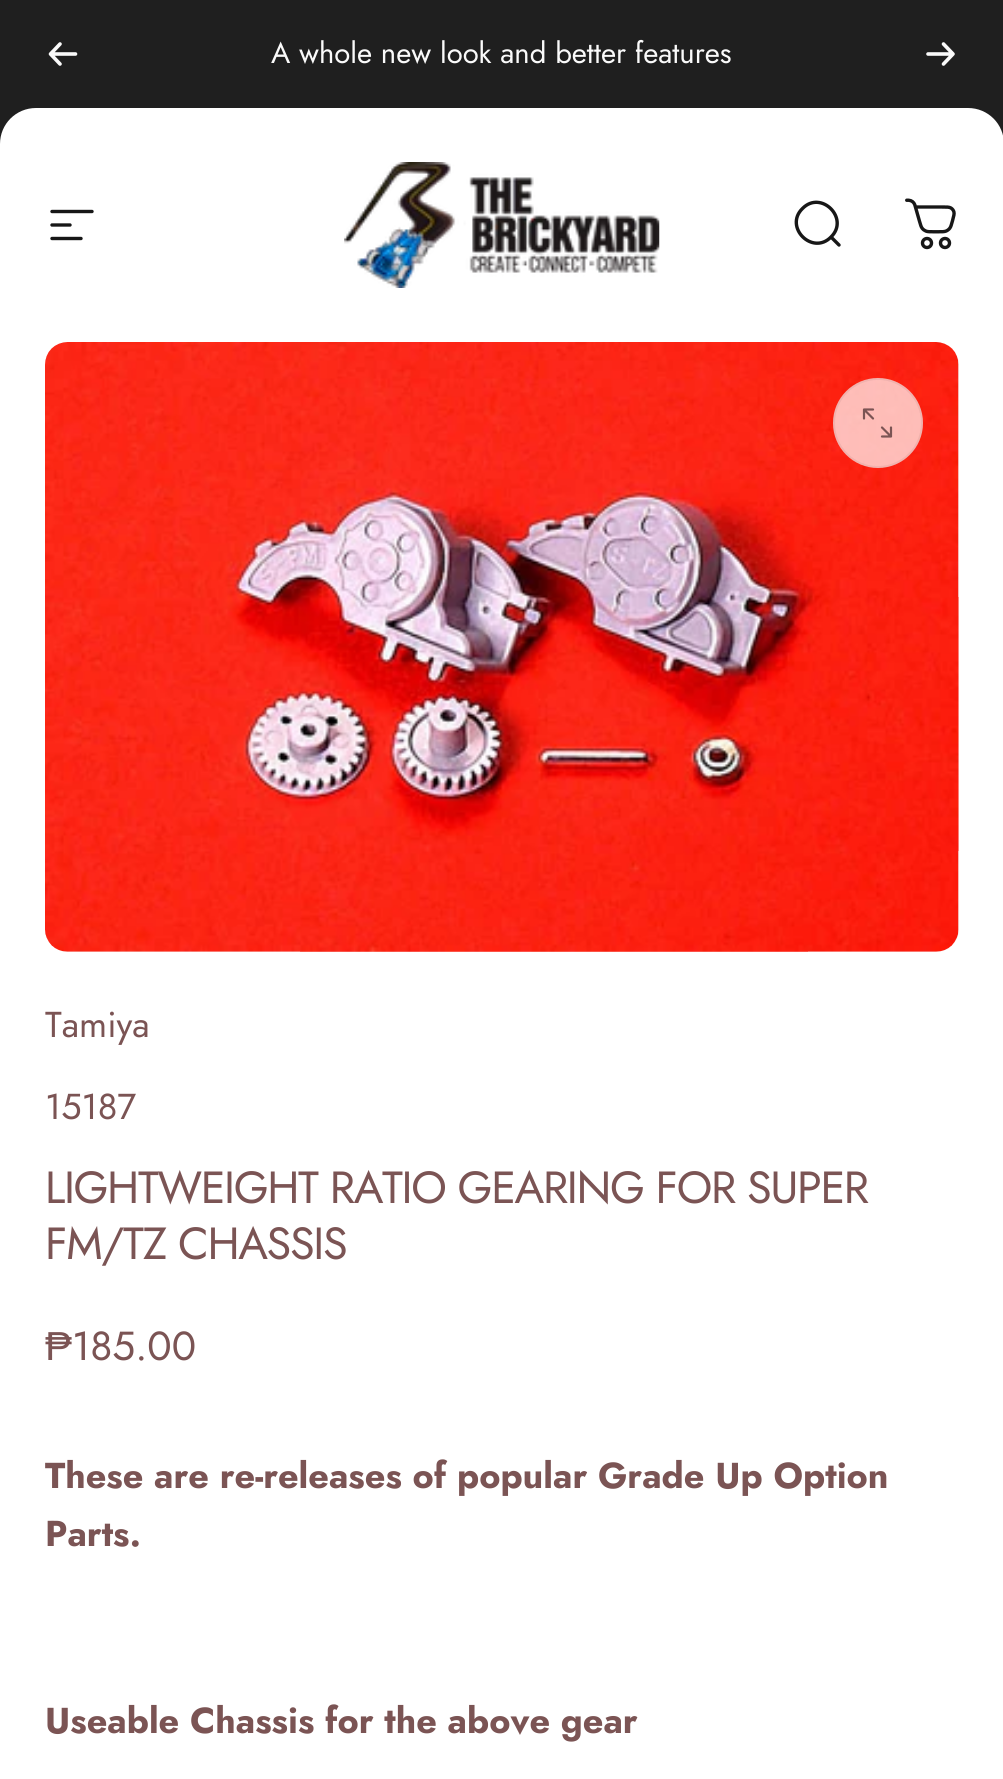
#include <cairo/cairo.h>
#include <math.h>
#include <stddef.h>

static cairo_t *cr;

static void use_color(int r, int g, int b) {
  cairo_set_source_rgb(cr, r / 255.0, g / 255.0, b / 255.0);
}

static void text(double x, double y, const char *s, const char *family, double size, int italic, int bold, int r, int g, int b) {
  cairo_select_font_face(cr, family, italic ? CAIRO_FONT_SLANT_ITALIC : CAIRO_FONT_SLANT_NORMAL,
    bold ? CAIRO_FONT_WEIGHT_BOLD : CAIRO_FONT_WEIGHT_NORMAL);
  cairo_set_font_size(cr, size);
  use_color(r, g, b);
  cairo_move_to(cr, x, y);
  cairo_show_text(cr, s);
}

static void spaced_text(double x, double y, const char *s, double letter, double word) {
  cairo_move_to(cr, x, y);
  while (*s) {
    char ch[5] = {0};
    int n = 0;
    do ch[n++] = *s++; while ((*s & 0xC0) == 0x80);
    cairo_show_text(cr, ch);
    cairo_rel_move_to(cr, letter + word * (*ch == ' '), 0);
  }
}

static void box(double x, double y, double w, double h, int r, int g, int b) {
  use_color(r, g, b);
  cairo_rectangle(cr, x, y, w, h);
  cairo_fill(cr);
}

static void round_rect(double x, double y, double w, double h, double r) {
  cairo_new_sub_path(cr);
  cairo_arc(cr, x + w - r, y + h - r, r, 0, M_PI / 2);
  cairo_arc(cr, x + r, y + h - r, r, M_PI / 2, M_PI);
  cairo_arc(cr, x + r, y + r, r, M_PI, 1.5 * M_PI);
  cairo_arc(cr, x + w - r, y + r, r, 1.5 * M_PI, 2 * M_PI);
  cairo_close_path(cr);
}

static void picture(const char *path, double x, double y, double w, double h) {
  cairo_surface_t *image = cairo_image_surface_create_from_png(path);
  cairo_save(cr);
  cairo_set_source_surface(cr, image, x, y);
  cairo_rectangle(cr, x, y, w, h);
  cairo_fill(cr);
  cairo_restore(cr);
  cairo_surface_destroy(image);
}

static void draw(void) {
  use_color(255, 255, 255);
  cairo_paint(cr);
  box(0, 0, 1003, 36, 31, 31, 31);
  cairo_new_path(cr);
  cairo_move_to(cr, 36, 0);
  cairo_line_to(cr, 968, 0);
  cairo_curve_to(cr, 988, 0, 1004, 16, 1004, 36);
  cairo_line_to(cr, 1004, 144);
  cairo_line_to(cr, 0, 144);
  cairo_line_to(cr, 0, 36);
  cairo_curve_to(cr, 0, 16, 16, 0, 36, 0);
  cairo_close_path(cr);
  cairo_fill(cr);
  cairo_new_path(cr);
  cairo_move_to(cr, 60, 44);
  cairo_line_to(cr, 50.5, 54);
  cairo_move_to(cr, 50.5, 54);
  cairo_line_to(cr, 60, 64);
  cairo_move_to(cr, 50.5, 54);
  cairo_line_to(cr, 75.5, 54);
  use_color(250, 250, 250);
  cairo_set_line_width(cr, 3.6);
  cairo_set_line_cap(cr, CAIRO_LINE_CAP_ROUND);
  cairo_set_line_join(cr, CAIRO_LINE_JOIN_ROUND);
  cairo_stroke(cr);
  cairo_new_path(cr);
  cairo_move_to(cr, 928, 54);
  cairo_line_to(cr, 953, 54);
  cairo_move_to(cr, 953, 54);
  cairo_line_to(cr, 943.5, 44);
  cairo_move_to(cr, 953, 54);
  cairo_line_to(cr, 943.5, 64);
  cairo_stroke(cr);
  use_color(255, 255, 255);
  cairo_new_path(cr);
  cairo_move_to(cr, 36, 108);
  cairo_line_to(cr, 968, 108);
  cairo_curve_to(cr, 988, 108, 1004, 124, 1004, 144);
  cairo_line_to(cr, 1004, 342);
  cairo_line_to(cr, 0, 342);
  cairo_line_to(cr, 0, 144);
  cairo_curve_to(cr, 0, 124, 16, 108, 36, 108);
  cairo_close_path(cr);
  cairo_fill(cr);
  cairo_new_path(cr);
  cairo_move_to(cr, 52, 211.5);
  cairo_line_to(cr, 92, 211.5);
  cairo_move_to(cr, 52, 225);
  cairo_line_to(cr, 70, 225);
  cairo_move_to(cr, 52, 238.5);
  cairo_line_to(cr, 81, 238.5);
  use_color(23, 23, 23);
  cairo_set_line_width(cr, 3.4);
  cairo_set_line_join(cr, CAIRO_LINE_JOIN_MITER);
  cairo_stroke(cr);
  picture("img_01.png", 344, 162, 316, 126);
  cairo_new_path(cr);
  cairo_move_to(cr, 839, 245);
  cairo_line_to(cr, 831, 237);
  cairo_move_to(cr, 831, 237);
  cairo_curve_to(cr, 850, 218.5, 821, 189.5, 802.5, 208.5);
  cairo_curve_to(cr, 783.5, 227, 812.5, 256, 831, 237);
  cairo_close_path(cr);
  cairo_stroke(cr);
  picture("img_02.png", 905, 198, 51, 52);
  use_color(244, 237, 237);
  round_rect(45, 342, 914, 610, 23);
  cairo_fill(cr);
  picture("img_03.png", 45, 342, 914, 610);
  cairo_set_source_rgba(cr, 1, 1, 1, 0.7);
  cairo_arc(cr, 878, 423, 45, 0, 2 * M_PI);
  cairo_fill(cr);
  cairo_arc(cr, 878, 423, 44, 0, 2 * M_PI);
  cairo_set_source_rgba(cr, 0.482, 0.329, 0.329, 0.1);
  cairo_set_line_width(cr, 2);
  cairo_set_line_cap(cr, CAIRO_LINE_CAP_BUTT);
  cairo_stroke(cr);
  cairo_new_path(cr);
  cairo_move_to(cr, 864, 409.5);
  cairo_line_to(cr, 864, 418.5);
  cairo_move_to(cr, 864, 409.5);
  cairo_line_to(cr, 873, 409.5);
  cairo_move_to(cr, 864, 409.5);
  cairo_line_to(cr, 873, 418.5);
  cairo_move_to(cr, 891, 436.5);
  cairo_line_to(cr, 891, 427.5);
  cairo_move_to(cr, 891, 436.5);
  cairo_line_to(cr, 882, 436.5);
  cairo_move_to(cr, 891, 436.5);
  cairo_line_to(cr, 882, 427.5);
  use_color(123, 84, 84);
  cairo_set_line_width(cr, 2.2);
  cairo_set_line_cap(cr, CAIRO_LINE_CAP_ROUND);
  cairo_set_line_join(cr, CAIRO_LINE_JOIN_ROUND);
  cairo_stroke(cr);
  text(271, 63, "A whole new look and better features", "Jost", 29.25, 0, 0, 250, 250, 250);
  text(45, 1037, "Tamiya", "Jost", 36, 0, 0, 123, 84, 84);
  text(45, 1119, "15187", "Jost", 36, 0, 0, 123, 84, 84);
  cairo_set_font_size(cr, 45);
  spaced_text(45, 1203, "LIGHTWEIGHT RATIO GEARING FOR SUPER", -1.35, 0);
  spaced_text(45, 1259, "FM/TZ CHASSIS", -1.35, 0);
  text(45, 1360, "₱", "Liberation Sans", 40.5, 0, 0, 123, 84, 84);
  text(72, 1360, "185.00", "Jost", 40.5, 0, 0, 123, 84, 84);
  text(45, 1488, "These are re-releases of popular Grade Up Option", "Jost", 36, 0, 1, 123, 84, 84);
  text(45, 1546, "Parts.", "Jost", 36, 0, 1, 123, 84, 84);
  text(45, 1733, "Useable Chassis for the above gear", "Jost", 36, 0, 1, 123, 84, 84);
}

int main(void) {
  cairo_surface_t *surface = cairo_image_surface_create(CAIRO_FORMAT_RGB24, 1003, 1779);
  cr = cairo_create(surface);
  cairo_font_options_t *options = cairo_font_options_create();
  cairo_font_options_set_hint_metrics(options, CAIRO_HINT_METRICS_OFF);
  cairo_font_options_set_hint_style(options, CAIRO_HINT_STYLE_NONE);
  cairo_set_font_options(cr, options);
  cairo_set_miter_limit(cr, 4);
  draw();
  cairo_surface_write_to_png(surface, "out.png");
  cairo_font_options_destroy(options);
  cairo_destroy(cr);
  cairo_surface_destroy(surface);
  return 0;
}
